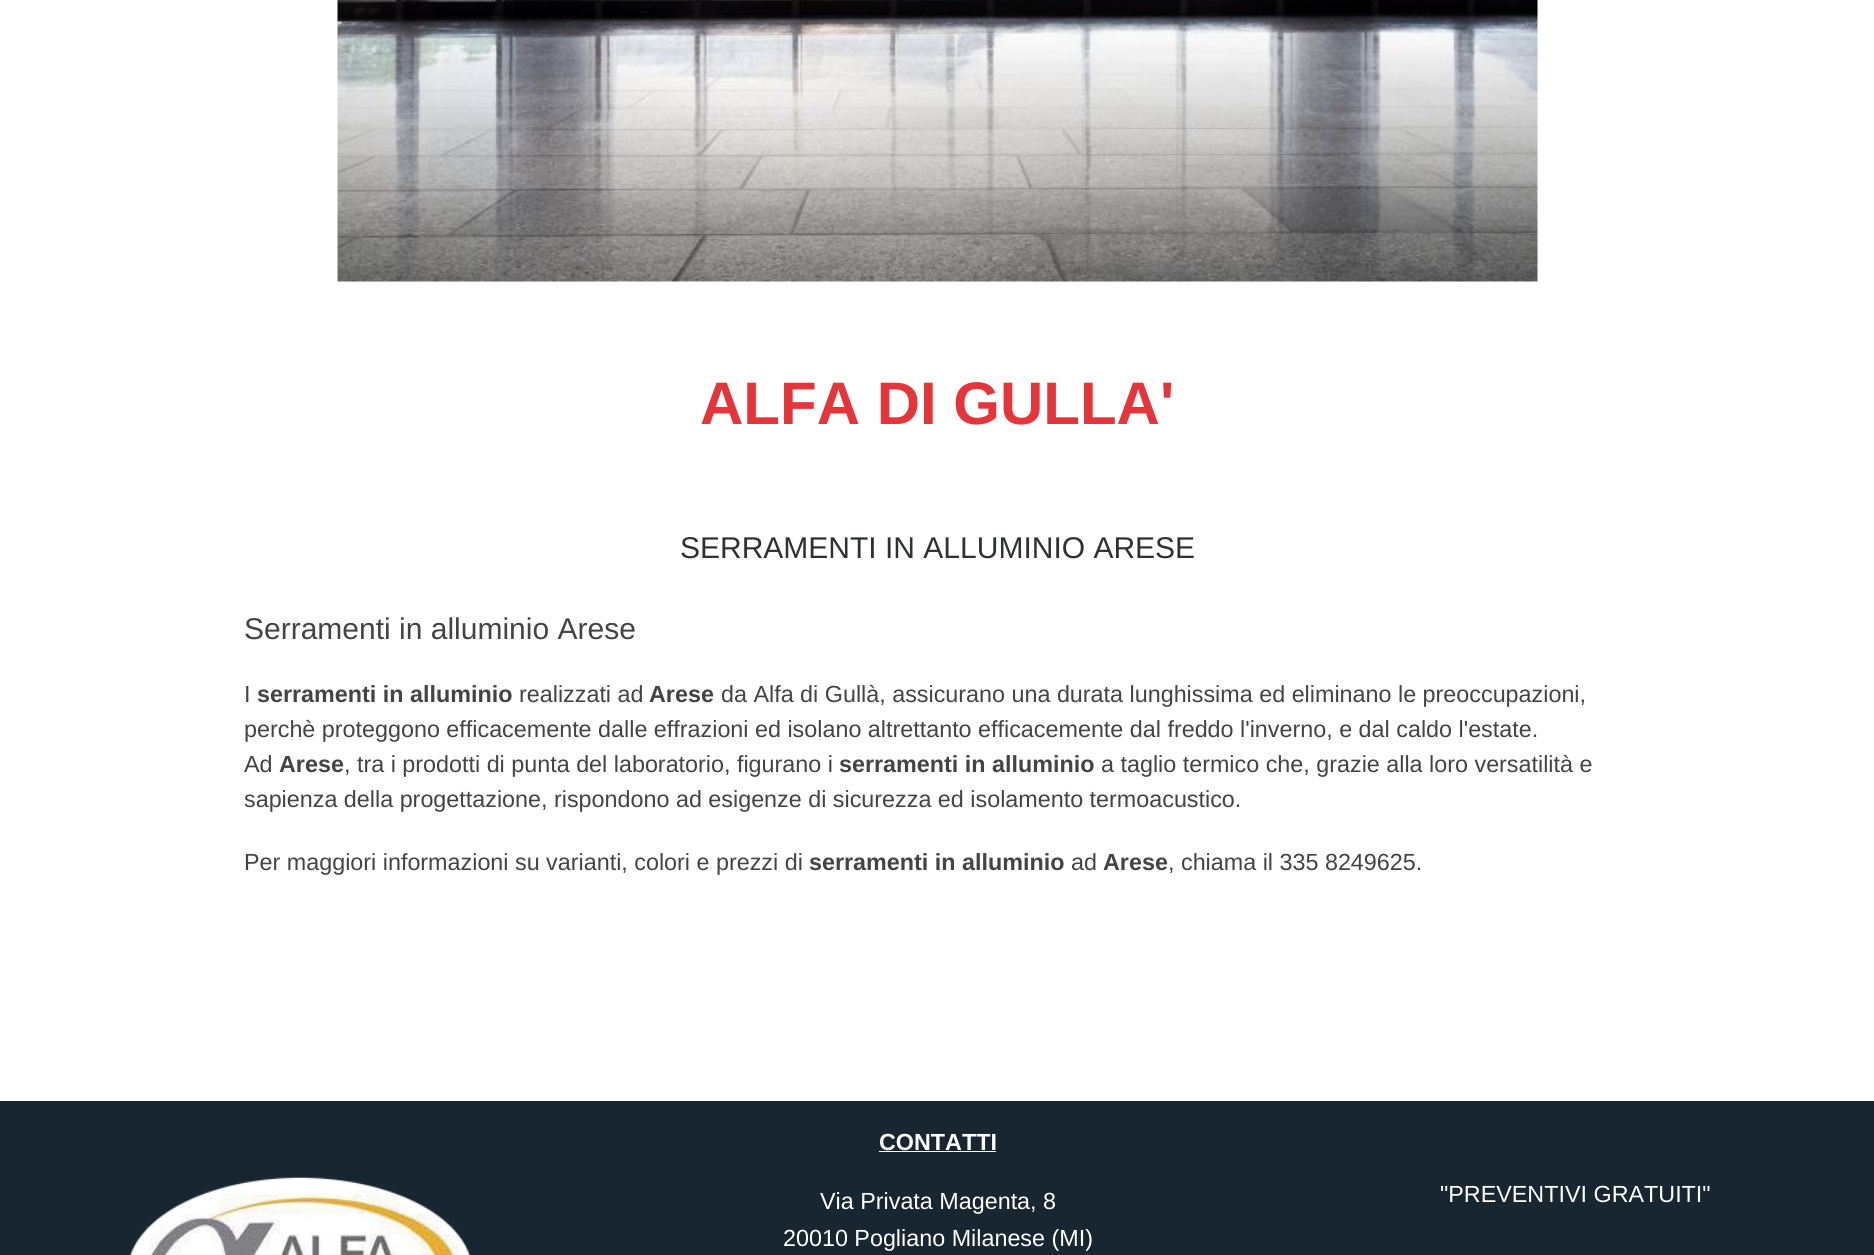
#include <cairo/cairo.h>
#include <math.h>
#include <stddef.h>

static cairo_t *cr;

static void use_color(int r, int g, int b) {
  cairo_set_source_rgb(cr, r / 255.0, g / 255.0, b / 255.0);
}

static void text(double x, double y, const char *s, const char *family, double size, int italic, int bold, int r, int g, int b) {
  cairo_select_font_face(cr, family, italic ? CAIRO_FONT_SLANT_ITALIC : CAIRO_FONT_SLANT_NORMAL,
    bold ? CAIRO_FONT_WEIGHT_BOLD : CAIRO_FONT_WEIGHT_NORMAL);
  cairo_set_font_size(cr, size);
  use_color(r, g, b);
  cairo_move_to(cr, x, y);
  cairo_show_text(cr, s);
}

static void box(double x, double y, double w, double h, int r, int g, int b) {
  use_color(r, g, b);
  cairo_rectangle(cr, x, y, w, h);
  cairo_fill(cr);
}

static void picture(const char *path, double x, double y, double w, double h) {
  cairo_surface_t *image = cairo_image_surface_create_from_png(path);
  cairo_save(cr);
  cairo_set_source_surface(cr, image, x, y);
  cairo_rectangle(cr, x, y, w, h);
  cairo_fill(cr);
  cairo_restore(cr);
  cairo_surface_destroy(image);
}

static void draw(void) {
  use_color(255, 255, 255);
  cairo_paint(cr);
  picture("img_01.png", 337, 0, 1201, 282);
  box(0, 1101, 1874, 154, 23, 38, 48);
  picture("img_02.png", 129, 1177, 342, 78);
  box(879, 1151, 117, 1, 255, 255, 255);
  text(700, 424, "ALFA DI GULLA'", "Liberation Sans", 60, 0, 1, 230, 53, 58);
  text(680, 558, "SERRAMENTI IN ALLUMINIO ARESE", "Liberation Sans", 30, 0, 0, 48, 49, 51);
  text(244, 639, "Serramenti in alluminio Arese", "Liberation Sans", 30, 0, 0, 68, 68, 68);
  text(244, 702, "I", "Liberation Sans", 23.33, 0, 0, 68, 68, 68);
  text(257, 702, "serramenti in alluminio", "Liberation Sans", 23.33, 0, 1, 68, 68, 68);
  text(519, 702, "realizzati ad", "Liberation Sans", 23.33, 0, 0, 68, 68, 68);
  text(649, 702, "Arese", "Liberation Sans", 23.33, 0, 1, 68, 68, 68);
  text(721, 702, "da Alfa di Gullà, assicurano una durata lunghissima ed eliminano le preoccupazioni,", "Liberation Sans", 23.33, 0, 0, 68, 68, 68);
  text(244, 737, "perchè proteggono efficacemente dalle effrazioni ed isolano altrettanto efficacemente dal freddo l'inverno, e dal caldo l'estate.", "Liberation Sans", 23.33, 0, 0, 68, 68, 68);
  text(244, 772, "Ad", "Liberation Sans", 23.33, 0, 0, 68, 68, 68);
  text(279, 772, "Arese", "Liberation Sans", 23.33, 0, 1, 68, 68, 68);
  text(344, 772, ", tra i prodotti di punta del laboratorio, figurano i", "Liberation Sans", 23.33, 0, 0, 68, 68, 68);
  text(839, 772, "serramenti in alluminio", "Liberation Sans", 23.33, 0, 1, 68, 68, 68);
  text(1101, 772, "a taglio termico che, grazie alla loro versatilità e", "Liberation Sans", 23.33, 0, 0, 68, 68, 68);
  text(244, 807, "sapienza della progettazione, rispondono ad esigenze di sicurezza ed isolamento termoacustico.", "Liberation Sans", 23.33, 0, 0, 68, 68, 68);
  text(244, 870, "Per maggiori informazioni su varianti, colori e prezzi di", "Liberation Sans", 23.33, 0, 0, 68, 68, 68);
  text(809, 870, "serramenti in alluminio", "Liberation Sans", 23.33, 0, 1, 68, 68, 68);
  text(1071, 870, "ad", "Liberation Sans", 23.33, 0, 0, 68, 68, 68);
  text(1103, 870, "Arese", "Liberation Sans", 23.33, 0, 1, 68, 68, 68);
  text(1168, 870, ", chiama il 335 8249625.", "Liberation Sans", 23.33, 0, 0, 68, 68, 68);
  text(879, 1150, "CONTATTI", "Liberation Sans", 23.33, 0, 1, 255, 255, 255);
  text(820, 1209, "Via Privata Magenta, 8", "Liberation Sans", 23.33, 0, 0, 255, 255, 255);
  text(783, 1246, "20010 Pogliano Milanese (MI)", "Liberation Sans", 23.33, 0, 0, 255, 255, 255);
  text(1440, 1202, "\"PREVENTIVI GRATUITI\"", "Liberation Sans", 23.33, 0, 0, 255, 255, 255);
}

int main(void) {
  cairo_surface_t *surface = cairo_image_surface_create(CAIRO_FORMAT_RGB24, 1874, 1255);
  cr = cairo_create(surface);
  cairo_font_options_t *options = cairo_font_options_create();
  cairo_font_options_set_hint_metrics(options, CAIRO_HINT_METRICS_OFF);
  cairo_font_options_set_hint_style(options, CAIRO_HINT_STYLE_NONE);
  cairo_set_font_options(cr, options);
  cairo_set_miter_limit(cr, 4);
  draw();
  cairo_surface_write_to_png(surface, "out.png");
  cairo_font_options_destroy(options);
  cairo_destroy(cr);
  cairo_surface_destroy(surface);
  return 0;
}
